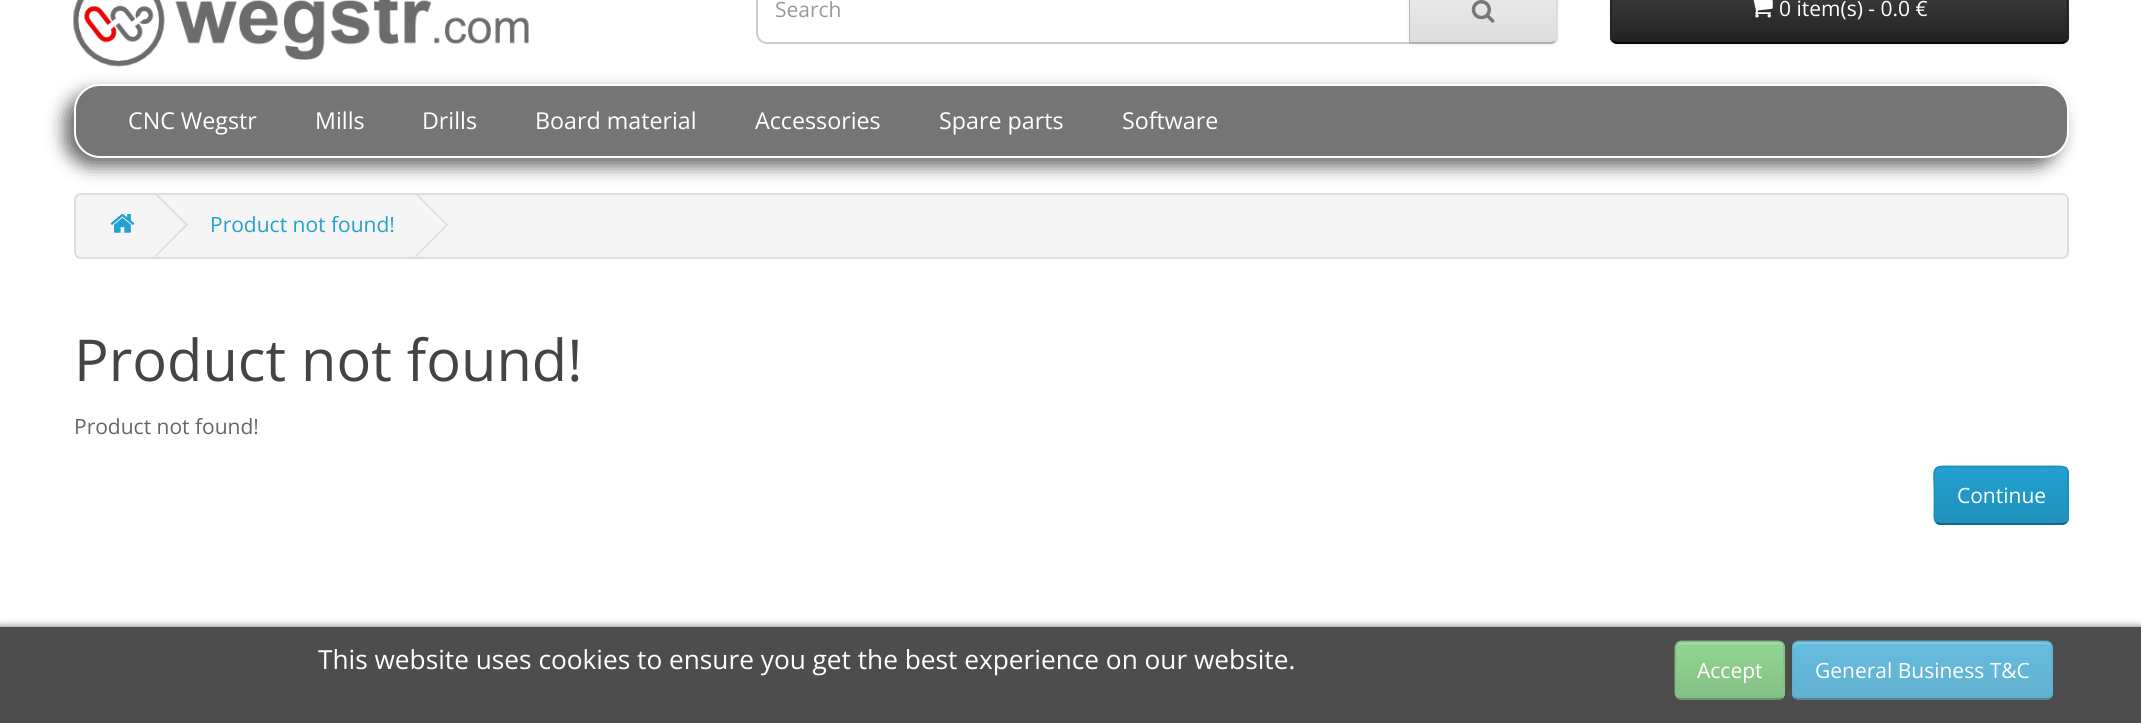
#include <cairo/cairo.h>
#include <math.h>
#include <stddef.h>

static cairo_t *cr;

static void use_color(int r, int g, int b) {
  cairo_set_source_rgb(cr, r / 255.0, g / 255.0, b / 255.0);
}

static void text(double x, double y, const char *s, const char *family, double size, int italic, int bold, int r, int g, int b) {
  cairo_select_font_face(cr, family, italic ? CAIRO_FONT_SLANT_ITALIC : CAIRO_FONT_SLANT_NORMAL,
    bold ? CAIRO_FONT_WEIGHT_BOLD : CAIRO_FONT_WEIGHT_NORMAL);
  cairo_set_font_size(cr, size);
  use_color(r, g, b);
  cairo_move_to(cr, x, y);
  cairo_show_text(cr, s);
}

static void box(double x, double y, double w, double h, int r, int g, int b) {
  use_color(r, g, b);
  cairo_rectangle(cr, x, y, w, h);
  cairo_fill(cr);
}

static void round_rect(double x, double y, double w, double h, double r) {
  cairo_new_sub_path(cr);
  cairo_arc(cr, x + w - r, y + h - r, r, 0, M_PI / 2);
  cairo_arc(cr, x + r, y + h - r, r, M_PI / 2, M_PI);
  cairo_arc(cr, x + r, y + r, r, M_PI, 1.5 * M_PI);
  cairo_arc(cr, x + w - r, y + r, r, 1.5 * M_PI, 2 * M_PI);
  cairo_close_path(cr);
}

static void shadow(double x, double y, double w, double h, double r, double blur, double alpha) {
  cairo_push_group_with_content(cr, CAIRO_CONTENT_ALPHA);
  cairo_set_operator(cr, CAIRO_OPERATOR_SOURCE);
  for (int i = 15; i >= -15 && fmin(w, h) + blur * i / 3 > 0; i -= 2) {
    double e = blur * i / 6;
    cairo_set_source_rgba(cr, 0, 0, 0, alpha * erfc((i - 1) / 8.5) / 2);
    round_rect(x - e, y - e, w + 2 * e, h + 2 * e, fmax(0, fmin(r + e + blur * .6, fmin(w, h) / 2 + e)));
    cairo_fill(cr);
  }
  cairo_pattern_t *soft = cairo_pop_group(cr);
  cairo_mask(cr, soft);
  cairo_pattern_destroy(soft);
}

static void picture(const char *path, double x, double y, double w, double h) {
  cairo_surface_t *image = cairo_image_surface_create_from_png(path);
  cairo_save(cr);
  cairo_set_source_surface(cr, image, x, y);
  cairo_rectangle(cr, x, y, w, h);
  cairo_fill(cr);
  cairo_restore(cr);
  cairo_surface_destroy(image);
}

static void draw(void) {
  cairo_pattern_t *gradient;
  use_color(255, 255, 255);
  cairo_paint(cr);
  picture("img_01.png", 73, 0, 456, 67);
  cairo_new_path(cr);
  cairo_move_to(cr, 767, -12);
  cairo_line_to(cr, 1410, -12);
  cairo_line_to(cr, 1410, 43);
  cairo_line_to(cr, 767, 43);
  cairo_curve_to(cr, 761.5, 43, 757, 38.5, 757, 33);
  cairo_line_to(cr, 757, -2);
  cairo_curve_to(cr, 757, -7.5, 761.5, -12, 767, -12);
  cairo_close_path(cr);
  use_color(204, 204, 204);
  cairo_stroke(cr);
  use_color(0, 0, 0);
  shadow(1409, -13, 149, 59, 7, 2, 0.05);
  use_color(231, 231, 231);
  cairo_new_path(cr);
  cairo_move_to(cr, 1409, -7);
  cairo_line_to(cr, 1551, -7);
  cairo_curve_to(cr, 1555, -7, 1558, -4, 1558, 0);
  cairo_line_to(cr, 1558, 37);
  cairo_curve_to(cr, 1558, 41, 1555, 44, 1551, 44);
  cairo_line_to(cr, 1409, 44);
  cairo_close_path(cr);
  cairo_fill(cr);
  cairo_save(cr);
  cairo_new_path(cr);
  cairo_move_to(cr, 1409, -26);
  cairo_line_to(cr, 1551, -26);
  cairo_curve_to(cr, 1555, -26, 1558, -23, 1558, -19);
  cairo_line_to(cr, 1558, 37);
  cairo_curve_to(cr, 1558, 41, 1555, 44, 1551, 44);
  cairo_line_to(cr, 1409, 44);
  cairo_close_path(cr);
  cairo_clip(cr);
  gradient = cairo_pattern_create_linear(1483, -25, 1483, 42);
  cairo_pattern_add_color_stop_rgba(gradient, 0, 0.933, 0.933, 0.933, 1);
  cairo_pattern_add_color_stop_rgba(gradient, 1, 0.867, 0.867, 0.867, 1);
  cairo_set_source(cr, gradient);
  cairo_pattern_destroy(gradient);
  cairo_rectangle(cr, 1410, 0, 148, 42);
  cairo_fill(cr);
  cairo_restore(cr);
  use_color(221, 221, 221);
  cairo_new_path(cr);
  cairo_move_to(cr, 1555, -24);
  cairo_line_to(cr, 1558, -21);
  cairo_line_to(cr, 1558, 39);
  cairo_line_to(cr, 1556, 42);
  cairo_line_to(cr, 1554, 41);
  cairo_curve_to(cr, 1555, 40, 1556, 38, 1556, 37);
  cairo_line_to(cr, 1556, -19);
  cairo_curve_to(cr, 1556, -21, 1555, -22, 1554, -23);
  cairo_close_path(cr);
  cairo_fill(cr);
  use_color(179, 179, 179);
  cairo_new_path(cr);
  cairo_move_to(cr, 1409, 44);
  cairo_line_to(cr, 1410, 42);
  cairo_line_to(cr, 1551, 42);
  cairo_line_to(cr, 1554, 41);
  cairo_line_to(cr, 1556, 42);
  cairo_line_to(cr, 1552, 44);
  cairo_close_path(cr);
  cairo_fill(cr);
  use_color(183, 183, 183);
  cairo_new_path(cr);
  cairo_move_to(cr, 1410, -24);
  cairo_line_to(cr, 1411, -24);
  cairo_line_to(cr, 1409, -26);
  cairo_line_to(cr, 1409, 44);
  cairo_line_to(cr, 1410, 42);
  cairo_close_path(cr);
  cairo_fill(cr);
  picture("img_02.png", 1471, 0, 24, 23);
  use_color(0, 0, 0);
  shadow(1610, -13, 459, 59, 7, 2, 0.05);
  use_color(54, 54, 54);
  round_rect(1610, -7, 459, 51, 7);
  cairo_fill(cr);
  cairo_save(cr);
  round_rect(1610, -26, 459, 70, 7);
  cairo_clip(cr);
  gradient = cairo_pattern_create_linear(1839, -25, 1839, 42);
  cairo_pattern_add_color_stop_rgba(gradient, 0, 0.267, 0.267, 0.267, 1);
  cairo_pattern_add_color_stop_rgba(gradient, 1, 0.133, 0.133, 0.133, 1);
  cairo_set_source(cr, gradient);
  cairo_pattern_destroy(gradient);
  cairo_rectangle(cr, 1610, 0, 459, 42);
  cairo_fill(cr);
  cairo_restore(cr);
  cairo_new_path(cr);
  cairo_move_to(cr, 2066, 41);
  cairo_curve_to(cr, 2064.5, 42, 2063, 43, 2061.5, 43);
  cairo_line_to(cr, 1617, 43);
  cairo_curve_to(cr, 1615.5, 43, 1614, 42, 1612.5, 41);
  use_color(0, 0, 0);
  cairo_set_line_width(cr, 1.8);
  cairo_stroke(cr);
  cairo_new_path(cr);
  cairo_move_to(cr, 1612.5, 41);
  cairo_curve_to(cr, 1611.5, 40, 1611, 38.5, 1611, 37);
  cairo_line_to(cr, 1611, -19);
  cairo_curve_to(cr, 1611, -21, 1611.5, -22.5, 1612.5, -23.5);
  cairo_curve_to(cr, 1614, -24.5, 1615.5, -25.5, 1617, -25.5);
  cairo_line_to(cr, 2061.5, -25.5);
  cairo_curve_to(cr, 2063, -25.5, 2064.5, -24.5, 2066, -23.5);
  cairo_curve_to(cr, 2067, -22.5, 2067.5, -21, 2067.5, -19);
  cairo_line_to(cr, 2067.5, 37);
  cairo_curve_to(cr, 2067.5, 38.5, 2067, 40, 2066, 41);
  use_color(34, 34, 34);
  cairo_stroke(cr);
  picture("img_03.png", 1753, 0, 20, 18);
  use_color(245, 245, 245);
  round_rect(75, 194, 1993, 64, 6);
  cairo_fill_preserve(cr);
  use_color(221, 221, 221);
  cairo_set_line_width(cr, 2);
  cairo_stroke(cr);
  use_color(101, 101, 101);
  shadow(65, 93, 1995, 73, 26, 9, 1);
  use_color(117, 117, 117);
  round_rect(75, 85, 1993, 72, 25);
  cairo_fill_preserve(cr);
  use_color(255, 255, 255);
  cairo_stroke(cr);
  picture("img_04.png", 110, 214, 25, 19);
  use_color(221, 221, 221);
  cairo_new_path(cr);
  cairo_move_to(cr, 154.5, 194);
  cairo_line_to(cr, 155.5, 192.5);
  cairo_line_to(cr, 188, 225);
  cairo_line_to(cr, 186.5, 226);
  cairo_close_path(cr);
  cairo_fill(cr);
  cairo_new_path(cr);
  cairo_move_to(cr, 154.5, 256);
  cairo_line_to(cr, 186.5, 223.5);
  cairo_line_to(cr, 188, 225);
  cairo_line_to(cr, 155.5, 257);
  cairo_close_path(cr);
  cairo_fill(cr);
  cairo_new_path(cr);
  cairo_move_to(cr, 415, 194);
  cairo_line_to(cr, 416, 192.5);
  cairo_line_to(cr, 448, 225);
  cairo_line_to(cr, 447, 226);
  cairo_close_path(cr);
  cairo_fill(cr);
  cairo_new_path(cr);
  cairo_move_to(cr, 415, 256);
  cairo_line_to(cr, 447, 223.5);
  cairo_line_to(cr, 448, 225);
  cairo_line_to(cr, 416, 257);
  cairo_close_path(cr);
  cairo_fill(cr);
  use_color(34, 154, 200);
  round_rect(1934, 466, 135, 59, 7);
  cairo_fill(cr);
  cairo_save(cr);
  round_rect(1934, 466, 135, 59, 7);
  cairo_clip(cr);
  gradient = cairo_pattern_create_linear(2001, 467, 2001, 523);
  cairo_pattern_add_color_stop_rgba(gradient, 0, 0.137, 0.631, 0.82, 1);
  cairo_pattern_add_color_stop_rgba(gradient, 1, 0.122, 0.565, 0.733, 1);
  cairo_set_source(cr, gradient);
  cairo_pattern_destroy(gradient);
  cairo_rectangle(cr, 1934, 467, 135, 56);
  cairo_fill(cr);
  cairo_restore(cr);
  cairo_new_path(cr);
  cairo_move_to(cr, 2066, 522.5);
  cairo_curve_to(cr, 2064.5, 523.5, 2063, 524, 2061.5, 524);
  cairo_line_to(cr, 1941, 524);
  cairo_curve_to(cr, 1939, 524, 1937.5, 523.5, 1936.5, 522.5);
  use_color(20, 94, 122);
  cairo_set_line_width(cr, 1.8);
  cairo_stroke(cr);
  cairo_new_path(cr);
  cairo_move_to(cr, 1936.5, 522.5);
  cairo_curve_to(cr, 1933.5, 519.5, 1934.5, 514, 1934.5, 510.5);
  cairo_line_to(cr, 1934.5, 495);
  cairo_curve_to(cr, 1934.5, 463, 1929, 466.5, 1961, 466.5);
  cairo_line_to(cr, 2041.5, 466.5);
  cairo_curve_to(cr, 2073.5, 466.5, 2067.5, 463, 2067.5, 495);
  cairo_line_to(cr, 2067.5, 510.5);
  cairo_curve_to(cr, 2067.5, 514, 2069, 519.5, 2066, 522.5);
  use_color(31, 144, 187);
  cairo_stroke(cr);
  use_color(77, 77, 77);
  shadow(0, 628, 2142, 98, 0, 4.5, 1);
  box(0, 627, 2141, 96, 77, 77, 77);
  cairo_save(cr);
  round_rect(1675, 641, 110, 59, 7);
  cairo_clip(cr);
  gradient = cairo_pattern_create_linear(1730, 642, 1730, 698);
  cairo_pattern_add_color_stop_rgba(gradient, 0, 0.569, 0.839, 0.569, 1);
  cairo_pattern_add_color_stop_rgba(gradient, 1, 0.522, 0.749, 0.522, 1);
  cairo_set_source(cr, gradient);
  cairo_pattern_destroy(gradient);
  cairo_rectangle(cr, 1675, 642, 110, 56);
  cairo_fill(cr);
  cairo_restore(cr);
  use_color(167, 222, 167);
  cairo_new_path(cr);
  cairo_move_to(cr, 1682, 644);
  cairo_line_to(cr, 1778, 644);
  cairo_curve_to(cr, 1781, 644, 1783, 646, 1783, 649);
  cairo_line_to(cr, 1783, 647);
  cairo_curve_to(cr, 1783, 644, 1781, 642, 1778, 642);
  cairo_line_to(cr, 1682, 642);
  cairo_curve_to(cr, 1680, 642, 1677, 644, 1677, 646);
  cairo_curve_to(cr, 1678, 645, 1680, 644, 1682, 644);
  cairo_close_path(cr);
  cairo_fill(cr);
  cairo_new_path(cr);
  cairo_move_to(cr, 1782.5, 697.5);
  cairo_curve_to(cr, 1781, 698.5, 1779.5, 699, 1778, 699);
  cairo_line_to(cr, 1682, 699);
  cairo_curve_to(cr, 1680, 699, 1678.5, 698.5, 1677.5, 697.5);
  use_color(116, 155, 116);
  cairo_stroke(cr);
  cairo_new_path(cr);
  cairo_move_to(cr, 1677.5, 697.5);
  cairo_curve_to(cr, 1676.5, 696, 1675.5, 694.5, 1675.5, 693);
  cairo_line_to(cr, 1675.5, 647.5);
  cairo_curve_to(cr, 1675.5, 646, 1676.5, 644.5, 1677.5, 643);
  cairo_curve_to(cr, 1678.5, 642, 1680, 641.5, 1682, 641.5);
  cairo_line_to(cr, 1778, 641.5);
  cairo_curve_to(cr, 1779.5, 641.5, 1781, 642, 1782.5, 643);
  cairo_curve_to(cr, 1783.5, 644.5, 1784, 646, 1784, 647.5);
  cairo_line_to(cr, 1784, 693);
  cairo_curve_to(cr, 1784, 694.5, 1783.5, 696, 1782.5, 697.5);
  use_color(133, 191, 133);
  cairo_stroke(cr);
  cairo_save(cr);
  round_rect(1792, 641, 261, 59, 7);
  cairo_clip(cr);
  gradient = cairo_pattern_create_linear(1922, 642, 1922, 698);
  cairo_pattern_add_color_stop_rgba(gradient, 0, 0.396, 0.741, 0.875, 1);
  cairo_pattern_add_color_stop_rgba(gradient, 1, 0.384, 0.694, 0.812, 1);
  cairo_set_source(cr, gradient);
  cairo_pattern_destroy(gradient);
  cairo_rectangle(cr, 1792, 642, 261, 56);
  cairo_fill(cr);
  cairo_restore(cr);
  use_color(132, 202, 229);
  cairo_new_path(cr);
  cairo_move_to(cr, 1799, 644);
  cairo_line_to(cr, 2046, 644);
  cairo_curve_to(cr, 2049, 644, 2051, 646, 2051, 649);
  cairo_line_to(cr, 2051, 647);
  cairo_curve_to(cr, 2051, 644, 2049, 642, 2046, 642);
  cairo_line_to(cr, 1799, 642);
  cairo_curve_to(cr, 1796, 642, 1794, 644, 1794, 647);
  cairo_line_to(cr, 1794, 649);
  cairo_curve_to(cr, 1794, 646, 1796, 644, 1799, 644);
  cairo_close_path(cr);
  cairo_fill(cr);
  cairo_new_path(cr);
  cairo_move_to(cr, 2050, 697.5);
  cairo_curve_to(cr, 2049, 698.5, 2047.5, 699, 2046, 699);
  cairo_line_to(cr, 1799, 699);
  cairo_curve_to(cr, 1797.5, 699, 1796, 698.5, 1794.5, 697.5);
  use_color(91, 142, 162);
  cairo_stroke(cr);
  cairo_new_path(cr);
  cairo_move_to(cr, 1794.5, 697.5);
  cairo_curve_to(cr, 1793.5, 696, 1793, 694.5, 1793, 693);
  cairo_line_to(cr, 1793, 647.5);
  cairo_curve_to(cr, 1793, 646, 1793.5, 644.5, 1794.5, 643);
  cairo_curve_to(cr, 1796, 642, 1797.5, 641.5, 1799, 641.5);
  cairo_line_to(cr, 2046, 641.5);
  cairo_curve_to(cr, 2047.5, 641.5, 2049, 642, 2050, 643);
  cairo_curve_to(cr, 2051, 644.5, 2052, 646, 2052, 647.5);
  cairo_line_to(cr, 2052, 693);
  cairo_curve_to(cr, 2052, 694.5, 2051, 696, 2050, 697.5);
  use_color(98, 177, 207);
  cairo_stroke(cr);
  text(775, 17, "Search", "Open Sans", 21, 0, 0, 153, 153, 153);
  text(1779, 16, "0 item(s) - 0.0 €", "Open Sans", 21, 0, 0, 255, 255, 255);
  text(128, 129, "CNC Wegstr", "Open Sans", 23.25, 0, 0, 255, 255, 255);
  text(315, 129, "Mills", "Open Sans", 23.25, 0, 0, 255, 255, 255);
  text(422, 129, "Drills", "Open Sans", 23.25, 0, 0, 255, 255, 255);
  text(535, 129, "Board material", "Open Sans", 23.25, 0, 0, 255, 255, 255);
  text(755, 129, "Accessories", "Open Sans", 23.25, 0, 0, 255, 255, 255);
  text(939, 129, "Spare parts", "Open Sans", 23.25, 0, 0, 255, 255, 255);
  text(1122, 129, "Software", "Open Sans", 23.25, 0, 0, 255, 255, 255);
  text(210, 232, "Product not found!", "Open Sans", 21, 0, 0, 35, 161, 209);
  text(74, 381, "Product not found!", "Open Sans", 57.75, 0, 0, 68, 68, 68);
  text(74, 434, "Product not found!", "Open Sans", 21, 0, 0, 102, 102, 102);
  text(1957, 503, "Continue", "Open Sans", 21, 0, 0, 255, 255, 255);
  text(318, 669, "This website uses cookies to ensure you get the best experience on our website.", "Open Sans", 26.25, 0, 0, 255, 255, 255);
  text(1697, 678, "Accept", "Open Sans", 21, 0, 0, 255, 255, 255);
  text(1815, 678, "General Business T&C", "Open Sans", 21, 0, 0, 255, 255, 255);
}

int main(void) {
  cairo_surface_t *surface = cairo_image_surface_create(CAIRO_FORMAT_RGB24, 2141, 723);
  cr = cairo_create(surface);
  cairo_font_options_t *options = cairo_font_options_create();
  cairo_font_options_set_hint_metrics(options, CAIRO_HINT_METRICS_OFF);
  cairo_font_options_set_hint_style(options, CAIRO_HINT_STYLE_NONE);
  cairo_set_font_options(cr, options);
  cairo_set_miter_limit(cr, 4);
  draw();
  cairo_surface_write_to_png(surface, "out.png");
  cairo_font_options_destroy(options);
  cairo_destroy(cr);
  cairo_surface_destroy(surface);
  return 0;
}
